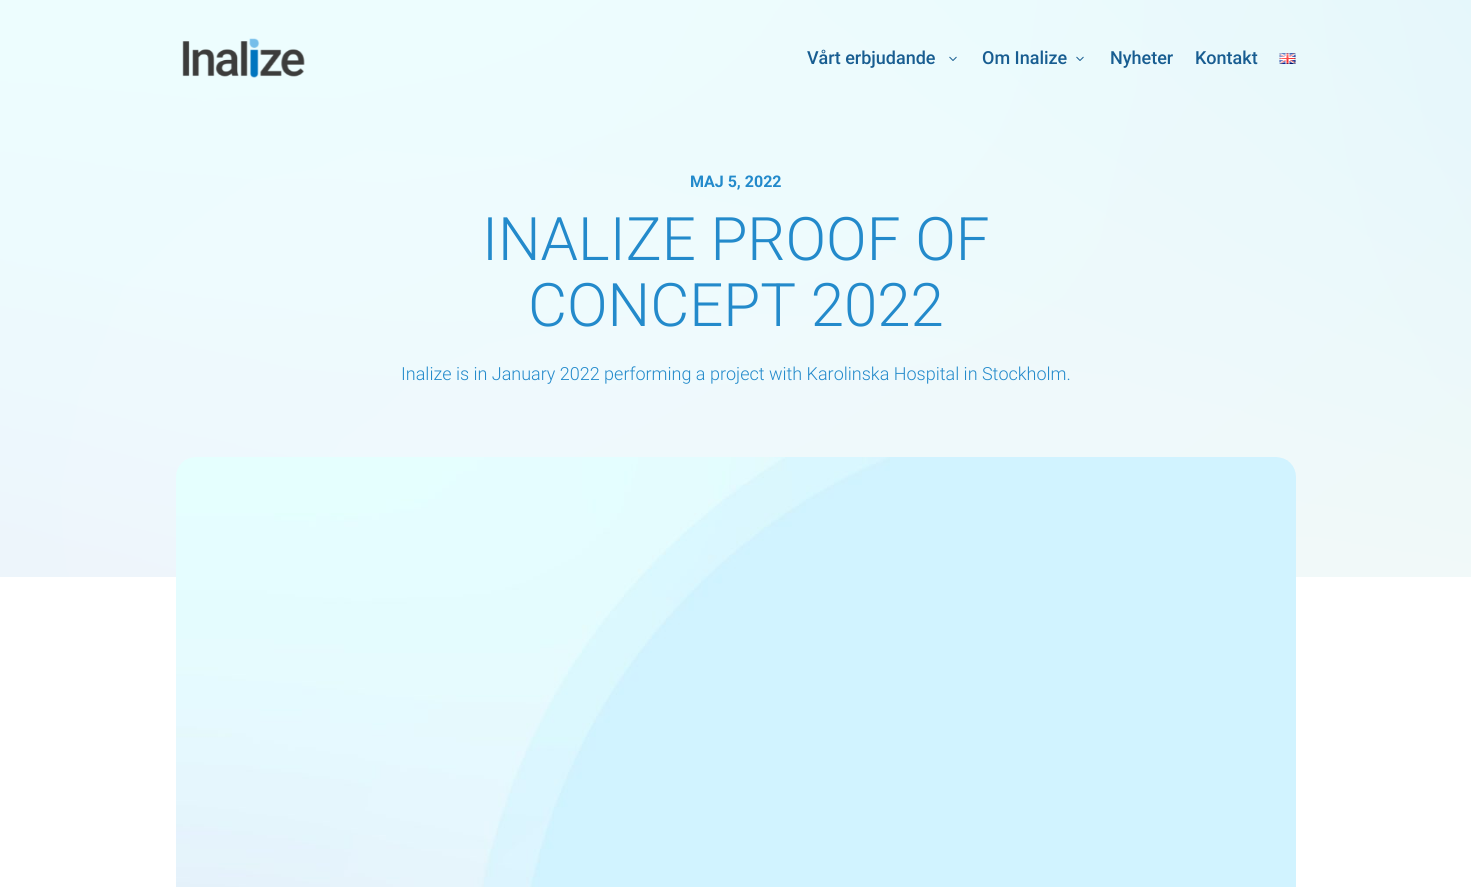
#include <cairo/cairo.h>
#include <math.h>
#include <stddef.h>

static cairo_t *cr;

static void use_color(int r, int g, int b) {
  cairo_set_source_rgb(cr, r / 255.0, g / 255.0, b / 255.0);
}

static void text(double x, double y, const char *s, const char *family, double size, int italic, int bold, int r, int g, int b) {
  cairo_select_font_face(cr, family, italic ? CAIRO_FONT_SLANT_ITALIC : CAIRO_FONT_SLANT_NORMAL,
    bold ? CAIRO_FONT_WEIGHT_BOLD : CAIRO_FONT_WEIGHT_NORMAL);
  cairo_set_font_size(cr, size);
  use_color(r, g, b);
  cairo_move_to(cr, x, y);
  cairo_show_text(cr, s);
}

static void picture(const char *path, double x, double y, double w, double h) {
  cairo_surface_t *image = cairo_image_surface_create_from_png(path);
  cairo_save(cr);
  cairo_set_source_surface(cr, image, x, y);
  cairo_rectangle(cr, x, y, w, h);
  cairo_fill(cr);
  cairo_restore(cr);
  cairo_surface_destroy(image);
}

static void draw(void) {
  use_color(255, 255, 255);
  cairo_paint(cr);
  picture("img_05.png", 0, 0, 1471, 577);
  picture("img_01.png", 182, 38, 123, 40);
  picture("img_02.png", 949, 56, 8, 5);
  picture("img_03.png", 1076, 56, 8, 5);
  picture("img_04.png", 1279, 53, 17, 11);
  picture("img_06.png", 176, 457, 1120, 430);
  text(807, 64, "Vårt erbjudande", "Roboto Medium", 18, 0, 0, 24, 93, 145);
  text(982, 64, "Om Inalize", "Roboto Medium", 18, 0, 0, 24, 93, 145);
  text(1110, 64, "Nyheter", "Roboto Medium", 18, 0, 0, 24, 93, 145);
  text(1195, 64, "Kontakt", "Roboto Medium", 18, 0, 0, 24, 93, 145);
  text(690, 187, "MAJ 5, 2022", "Roboto", 16, 0, 1, 35, 138, 203);
  text(482, 260, "INALIZE PROOF OF", "Roboto Light", 60, 0, 0, 35, 138, 203);
  text(528, 326, "CONCEPT 2022", "Roboto Light", 60, 0, 0, 35, 138, 203);
  text(401, 380, "Inalize is in January 2022 performing a project with Karolinska Hospital in Stockholm.", "Roboto Light", 18, 0, 0, 35, 138, 203);
}

int main(void) {
  cairo_surface_t *surface = cairo_image_surface_create(CAIRO_FORMAT_RGB24, 1471, 887);
  cr = cairo_create(surface);
  cairo_font_options_t *options = cairo_font_options_create();
  cairo_font_options_set_hint_metrics(options, CAIRO_HINT_METRICS_OFF);
  cairo_font_options_set_hint_style(options, CAIRO_HINT_STYLE_NONE);
  cairo_set_font_options(cr, options);
  cairo_set_miter_limit(cr, 4);
  draw();
  cairo_surface_write_to_png(surface, "out.png");
  cairo_font_options_destroy(options);
  cairo_destroy(cr);
  cairo_surface_destroy(surface);
  return 0;
}
